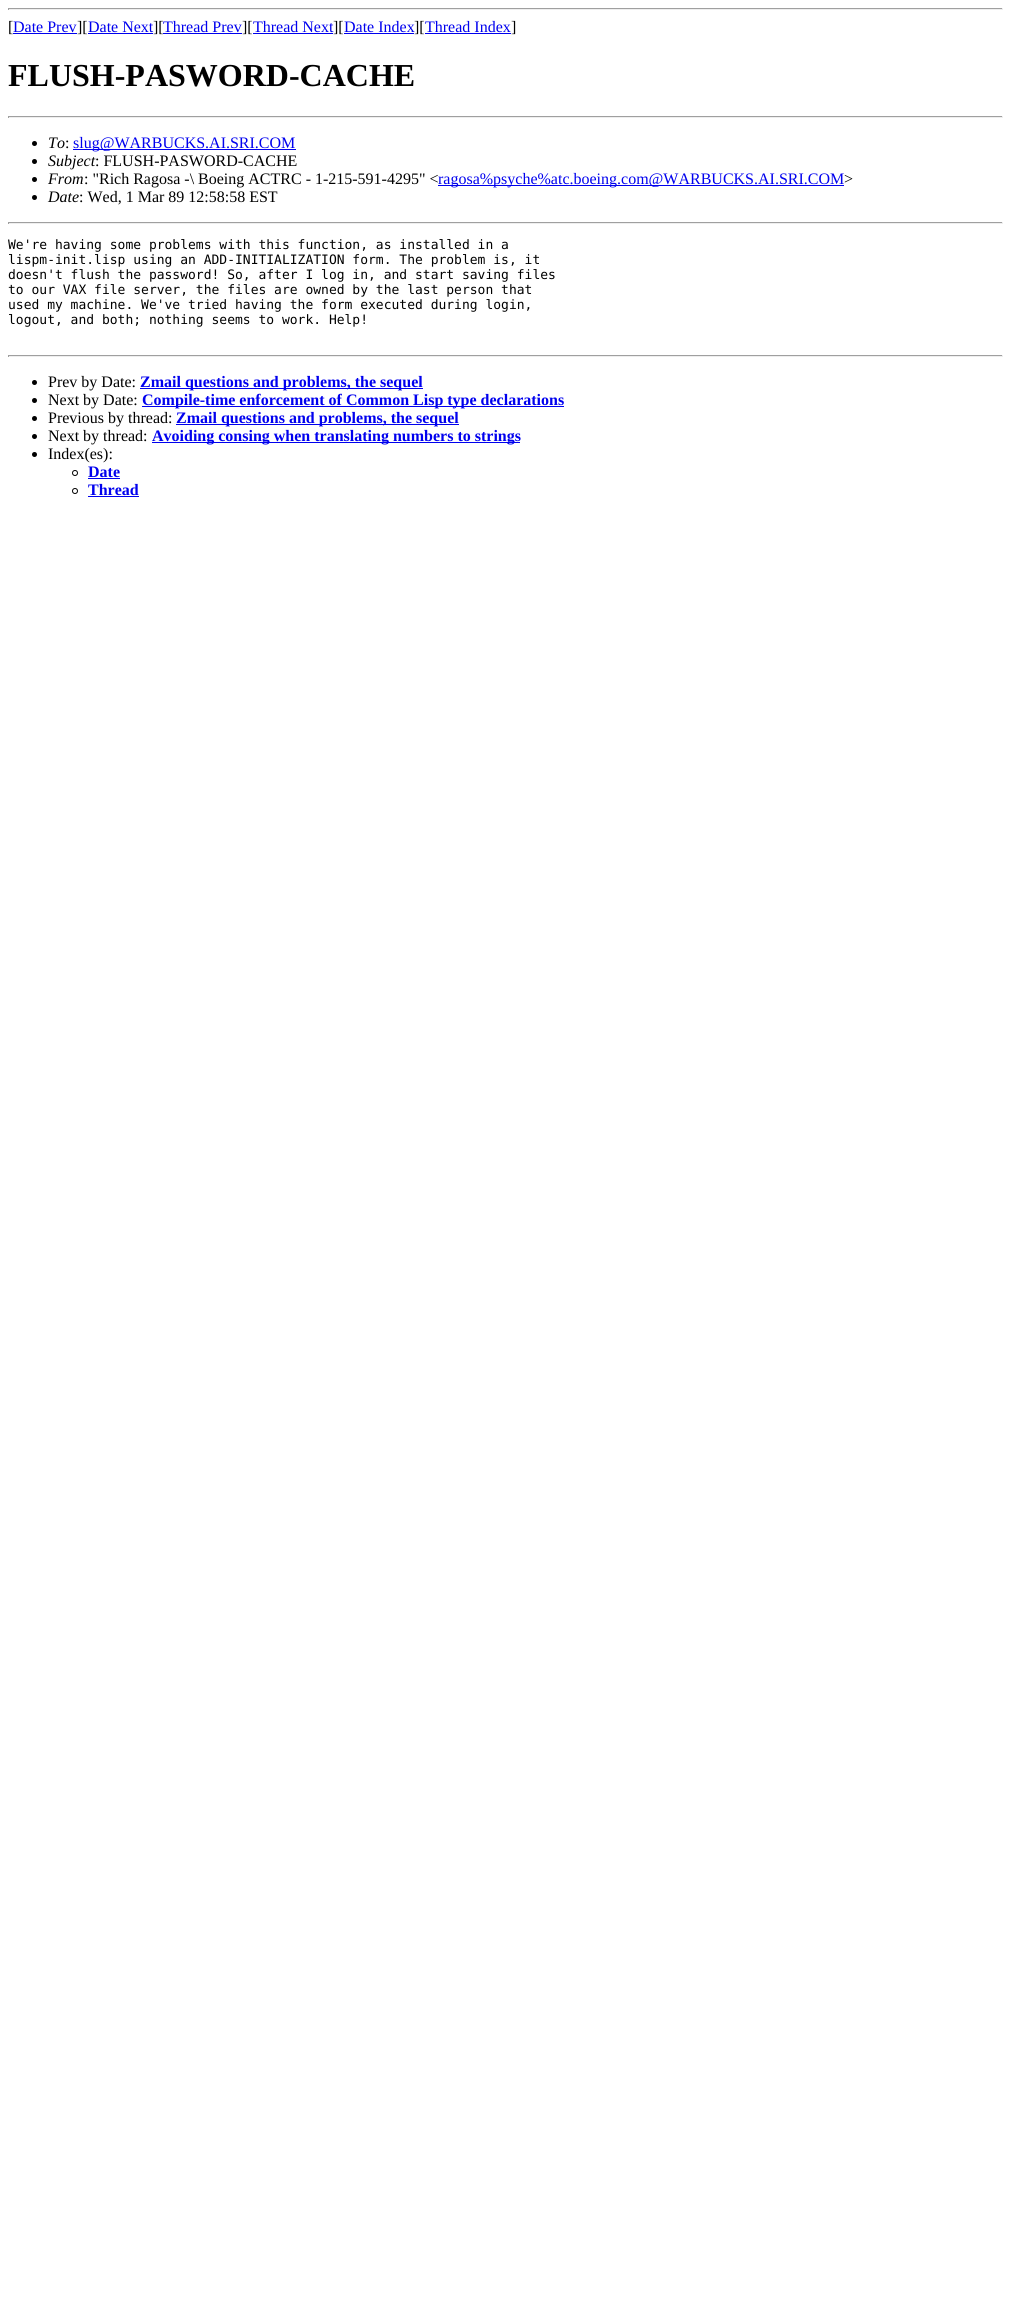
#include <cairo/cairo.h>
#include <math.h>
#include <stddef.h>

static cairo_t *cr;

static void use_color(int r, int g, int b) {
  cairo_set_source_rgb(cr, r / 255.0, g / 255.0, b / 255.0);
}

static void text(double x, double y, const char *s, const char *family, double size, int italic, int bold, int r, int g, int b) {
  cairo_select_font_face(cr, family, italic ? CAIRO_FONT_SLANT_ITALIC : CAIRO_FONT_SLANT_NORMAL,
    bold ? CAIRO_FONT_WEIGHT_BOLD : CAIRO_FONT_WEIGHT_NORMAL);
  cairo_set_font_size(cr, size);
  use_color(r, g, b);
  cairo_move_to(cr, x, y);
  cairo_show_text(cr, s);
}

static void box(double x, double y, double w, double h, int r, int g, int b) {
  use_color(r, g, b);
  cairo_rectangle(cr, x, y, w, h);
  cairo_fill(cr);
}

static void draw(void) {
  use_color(255, 255, 255);
  cairo_paint(cr);
  box(8, 8, 995, 1, 159, 159, 159);
  box(1002, 8, 1, 2, 238, 238, 238);
  box(8, 9, 995, 1, 238, 238, 238);
  box(8, 8, 1, 2, 159, 159, 159);
  box(13, 33, 64, 1, 0, 0, 238);
  box(88, 33, 65, 1, 0, 0, 238);
  box(163, 33, 79, 1, 0, 0, 238);
  box(253, 33, 80, 1, 0, 0, 238);
  box(344, 33, 70, 1, 0, 0, 238);
  box(425, 33, 86, 1, 0, 0, 238);
  box(8, 116, 995, 1, 159, 159, 159);
  box(1002, 116, 1, 2, 238, 238, 238);
  box(8, 117, 995, 1, 238, 238, 238);
  box(8, 116, 1, 2, 159, 159, 159);
  use_color(0, 0, 0);
  cairo_arc(cr, 34.5, 143.5, 2.5, 0, 2 * M_PI);
  cairo_fill(cr);
  box(73, 149, 223, 1, 0, 0, 238);
  use_color(0, 0, 0);
  cairo_arc(cr, 34.5, 161.5, 2.5, 0, 2 * M_PI);
  cairo_fill(cr);
  cairo_arc(cr, 34.5, 179.5, 2.5, 0, 2 * M_PI);
  cairo_fill(cr);
  box(438, 185, 406, 1, 0, 0, 238);
  use_color(0, 0, 0);
  cairo_arc(cr, 34.5, 197.5, 2.5, 0, 2 * M_PI);
  cairo_fill(cr);
  box(8, 222, 995, 1, 159, 159, 159);
  box(1002, 222, 1, 2, 238, 238, 238);
  box(8, 223, 995, 1, 238, 238, 238);
  box(8, 222, 1, 2, 159, 159, 159);
  box(8, 355, 995, 1, 159, 159, 159);
  box(1002, 355, 1, 2, 238, 238, 238);
  box(8, 356, 995, 1, 238, 238, 238);
  box(8, 355, 1, 2, 159, 159, 159);
  use_color(0, 0, 0);
  cairo_arc(cr, 34.5, 382.5, 2.5, 0, 2 * M_PI);
  cairo_fill(cr);
  box(140, 388, 283, 1, 0, 0, 238);
  use_color(0, 0, 0);
  cairo_arc(cr, 34.5, 400.5, 2.5, 0, 2 * M_PI);
  cairo_fill(cr);
  box(142, 406, 422, 1, 0, 0, 238);
  use_color(0, 0, 0);
  cairo_arc(cr, 34.5, 418.5, 2.5, 0, 2 * M_PI);
  cairo_fill(cr);
  box(176, 424, 283, 1, 0, 0, 238);
  use_color(0, 0, 0);
  cairo_arc(cr, 34.5, 436.5, 2.5, 0, 2 * M_PI);
  cairo_fill(cr);
  box(152, 442, 368, 1, 0, 0, 238);
  use_color(0, 0, 0);
  cairo_arc(cr, 34.5, 454.5, 2.5, 0, 2 * M_PI);
  cairo_fill(cr);
  cairo_arc(cr, 75, 473, 2.5, 0, 2 * M_PI);
  cairo_set_line_width(cr, 1);
  cairo_stroke(cr);
  box(88, 478, 32, 1, 0, 0, 238);
  cairo_arc(cr, 75, 491, 2.5, 0, 2 * M_PI);
  use_color(0, 0, 0);
  cairo_stroke(cr);
  box(88, 496, 51, 1, 0, 0, 238);
  text(8, 32, "[", "Liberation Serif", 16, 0, 0, 0, 0, 0);
  text(13, 32, "Date Prev", "Liberation Serif", 16, 0, 0, 0, 0, 238);
  text(77, 32, "][", "Liberation Serif", 16, 0, 0, 0, 0, 0);
  text(88, 32, "Date Next", "Liberation Serif", 16, 0, 0, 0, 0, 238);
  text(153, 32, "][", "Liberation Serif", 16, 0, 0, 0, 0, 0);
  text(163, 32, "Thread Prev", "Liberation Serif", 16, 0, 0, 0, 0, 238);
  text(242, 32, "][", "Liberation Serif", 16, 0, 0, 0, 0, 0);
  text(253, 32, "Thread Next", "Liberation Serif", 16, 0, 0, 0, 0, 238);
  text(333, 32, "][", "Liberation Serif", 16, 0, 0, 0, 0, 0);
  text(344, 32, "Date Index", "Liberation Serif", 16, 0, 0, 0, 0, 238);
  text(414, 32, "][", "Liberation Serif", 16, 0, 0, 0, 0, 0);
  text(425, 32, "Thread Index", "Liberation Serif", 16, 0, 0, 0, 0, 238);
  text(511, 32, "]", "Liberation Serif", 16, 0, 0, 0, 0, 0);
  text(8, 86, "FLUSH-PASWORD-CACHE", "Liberation Serif", 32, 0, 1, 0, 0, 0);
  text(48, 148, "To", "Liberation Serif", 16, 1, 0, 0, 0, 0);
  text(65, 148, ":", "Liberation Serif", 16, 0, 0, 0, 0, 0);
  text(73, 148, "slug@WARBUCKS.AI.SRI.COM", "Liberation Serif", 16, 0, 0, 0, 0, 238);
  text(48, 166, "Subject", "Liberation Serif", 16, 1, 0, 0, 0, 0);
  text(95, 166, ": FLUSH-PASWORD-CACHE", "Liberation Serif", 16, 0, 0, 0, 0, 0);
  text(48, 184, "From", "Liberation Serif", 16, 1, 0, 0, 0, 0);
  text(84, 184, ": \"Rich Ragosa -\\ Boeing ACTRC - 1-215-591-4295\" <", "Liberation Serif", 16, 0, 0, 0, 0, 0);
  text(438, 184, "ragosa%psyche%atc.boeing.com@WARBUCKS.AI.SRI.COM", "Liberation Serif", 16, 0, 0, 0, 0, 238);
  text(844, 184, ">", "Liberation Serif", 16, 0, 0, 0, 0, 0);
  text(48, 202, "Date", "Liberation Serif", 16, 1, 0, 0, 0, 0);
  text(79, 202, ": Wed, 1 Mar 89 12:58:58 EST", "Liberation Serif", 16, 0, 0, 0, 0, 0);
  text(8, 249, "We're having some problems with this function, as installed in a", "DejaVu Sans Mono", 13, 0, 0, 0, 0, 0);
  text(8, 264, "lispm-init.lisp using an ADD-INITIALIZATION form. The problem is, it", "DejaVu Sans Mono", 13, 0, 0, 0, 0, 0);
  text(8, 279, "doesn't flush the password! So, after I log in, and start saving files", "DejaVu Sans Mono", 13, 0, 0, 0, 0, 0);
  text(8, 294, "to our VAX file server, the files are owned by the last person that", "DejaVu Sans Mono", 13, 0, 0, 0, 0, 0);
  text(8, 309, "used my machine. We've tried having the form executed during login,", "DejaVu Sans Mono", 13, 0, 0, 0, 0, 0);
  text(8, 324, "logout, and both; nothing seems to work. Help!", "DejaVu Sans Mono", 13, 0, 0, 0, 0, 0);
  text(48, 387, "Prev by Date:", "Liberation Serif", 16, 0, 0, 0, 0, 0);
  text(140, 387, "Zmail questions and problems, the sequel", "Liberation Serif", 16, 0, 1, 0, 0, 238);
  text(48, 405, "Next by Date:", "Liberation Serif", 16, 0, 0, 0, 0, 0);
  text(142, 405, "Compile-time enforcement of Common Lisp type declarations", "Liberation Serif", 16, 0, 1, 0, 0, 238);
  text(48, 423, "Previous by thread:", "Liberation Serif", 16, 0, 0, 0, 0, 0);
  text(176, 423, "Zmail questions and problems, the sequel", "Liberation Serif", 16, 0, 1, 0, 0, 238);
  text(48, 441, "Next by thread:", "Liberation Serif", 16, 0, 0, 0, 0, 0);
  text(152, 441, "Avoiding consing when translating numbers to strings", "Liberation Serif", 16, 0, 1, 0, 0, 238);
  text(48, 459, "Index(es):", "Liberation Serif", 16, 0, 0, 0, 0, 0);
  text(88, 477, "Date", "Liberation Serif", 16, 0, 1, 0, 0, 238);
  text(88, 495, "Thread", "Liberation Serif", 16, 0, 1, 0, 0, 238);
}

int main(void) {
  cairo_surface_t *surface = cairo_image_surface_create(CAIRO_FORMAT_RGB24, 1011, 2299);
  cr = cairo_create(surface);
  cairo_font_options_t *options = cairo_font_options_create();
  cairo_font_options_set_hint_metrics(options, CAIRO_HINT_METRICS_OFF);
  cairo_font_options_set_hint_style(options, CAIRO_HINT_STYLE_NONE);
  cairo_set_font_options(cr, options);
  cairo_set_miter_limit(cr, 4);
  draw();
  cairo_surface_write_to_png(surface, "out.png");
  cairo_font_options_destroy(options);
  cairo_destroy(cr);
  cairo_surface_destroy(surface);
  return 0;
}
